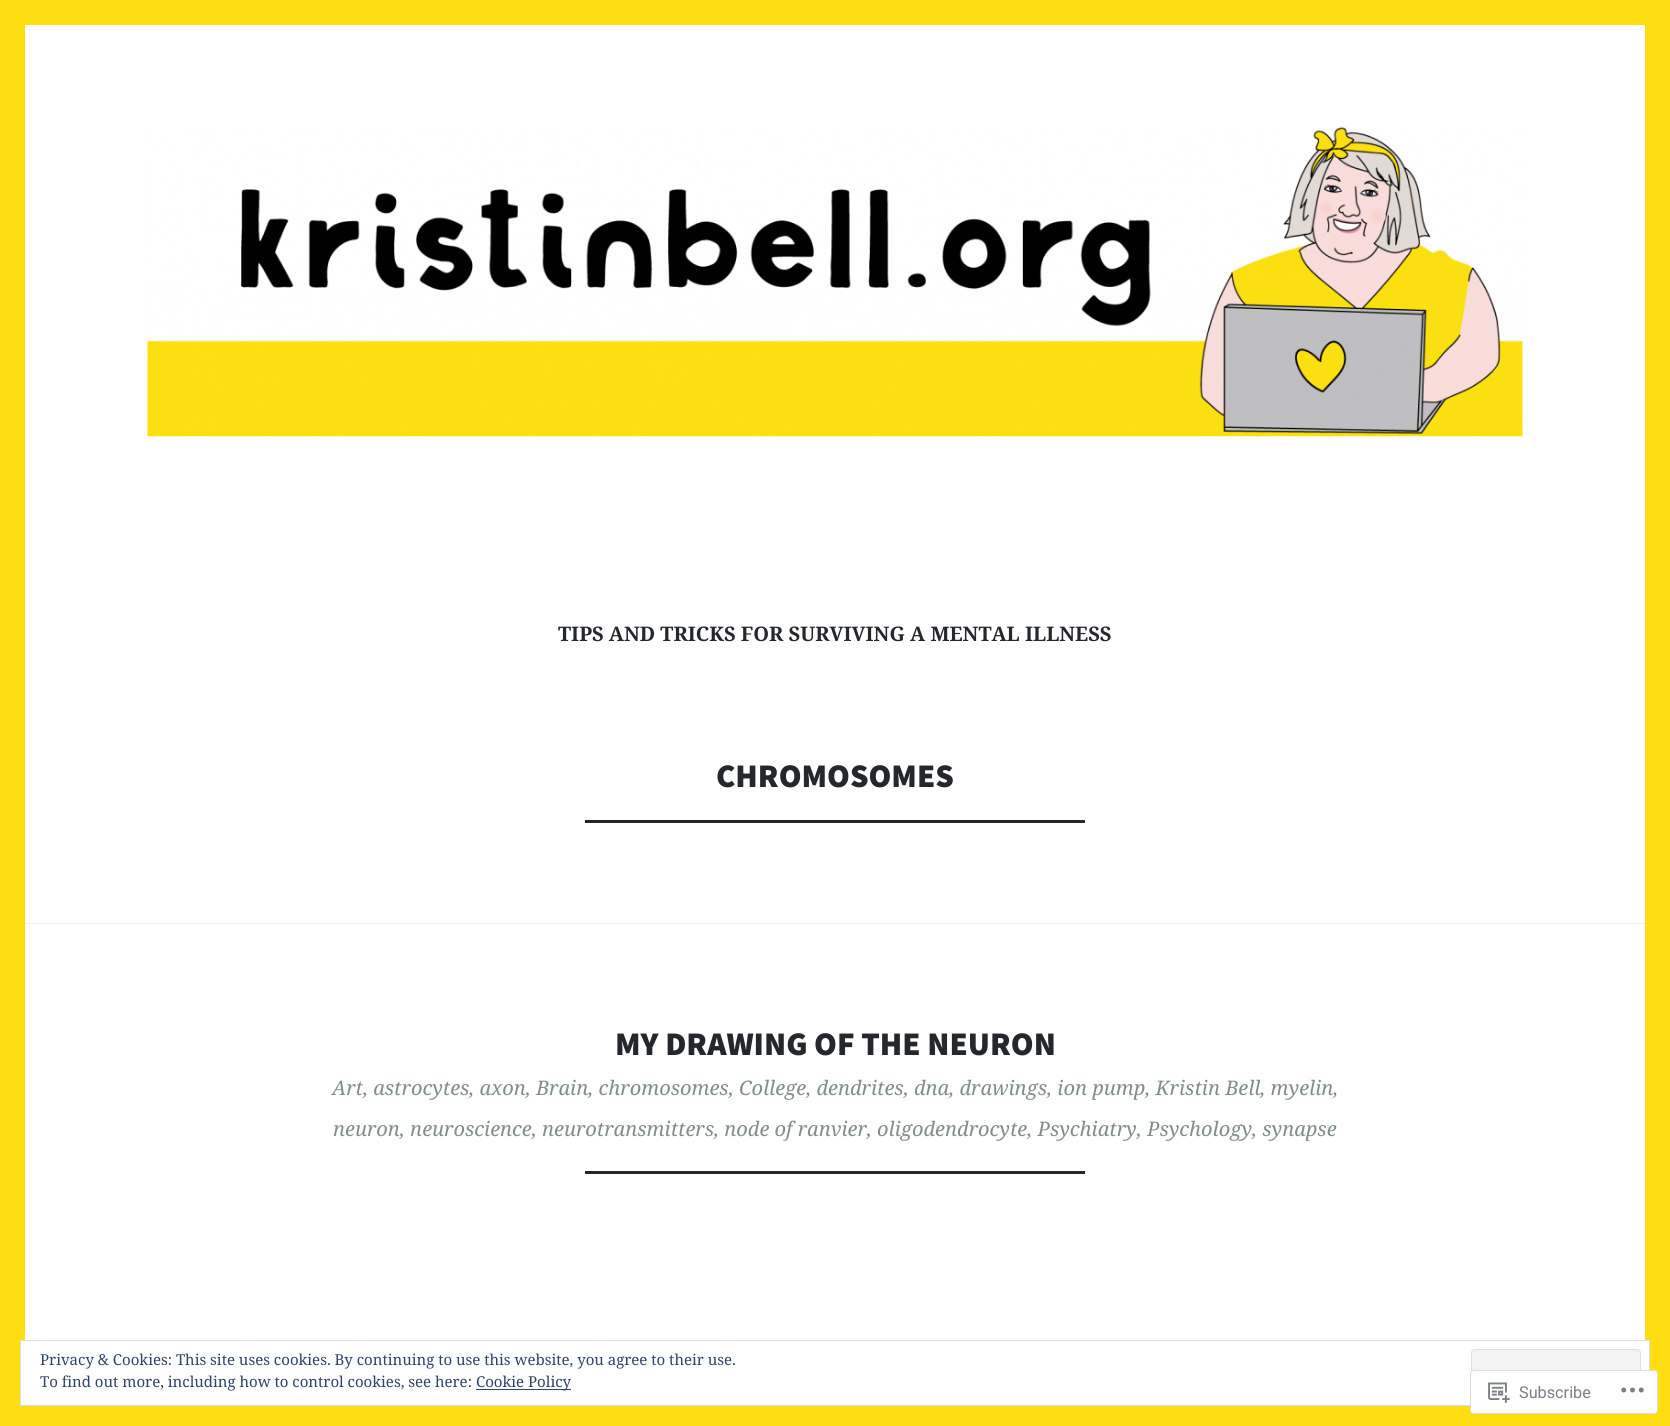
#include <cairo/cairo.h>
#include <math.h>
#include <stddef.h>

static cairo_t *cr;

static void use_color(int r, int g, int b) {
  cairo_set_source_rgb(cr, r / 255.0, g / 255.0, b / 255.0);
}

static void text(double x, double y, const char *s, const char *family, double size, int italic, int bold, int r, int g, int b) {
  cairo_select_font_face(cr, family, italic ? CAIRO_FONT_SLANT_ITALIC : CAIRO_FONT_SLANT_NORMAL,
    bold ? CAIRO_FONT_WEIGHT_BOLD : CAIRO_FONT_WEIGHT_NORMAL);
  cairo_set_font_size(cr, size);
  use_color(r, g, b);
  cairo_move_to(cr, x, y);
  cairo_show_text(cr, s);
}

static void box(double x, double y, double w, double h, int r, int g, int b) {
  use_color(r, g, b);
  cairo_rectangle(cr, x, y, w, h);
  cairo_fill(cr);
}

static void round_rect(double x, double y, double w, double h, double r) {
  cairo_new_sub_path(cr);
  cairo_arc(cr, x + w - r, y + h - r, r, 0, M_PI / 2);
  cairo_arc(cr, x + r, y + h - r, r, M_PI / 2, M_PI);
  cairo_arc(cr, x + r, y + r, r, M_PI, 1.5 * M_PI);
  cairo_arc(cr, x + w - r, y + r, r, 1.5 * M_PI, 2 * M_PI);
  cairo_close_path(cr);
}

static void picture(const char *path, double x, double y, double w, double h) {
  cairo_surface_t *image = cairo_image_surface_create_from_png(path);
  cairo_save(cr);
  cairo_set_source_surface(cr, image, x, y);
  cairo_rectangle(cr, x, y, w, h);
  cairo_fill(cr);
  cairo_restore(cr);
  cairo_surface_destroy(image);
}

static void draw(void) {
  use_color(254, 222, 16);
  cairo_paint(cr);
  box(25, 25, 1620, 1315, 255, 255, 255);
  picture("img_01.png", 147, 126, 1376, 311);
  box(585, 820, 500, 3, 36, 40, 45);
  box(25, 923, 1620, 1, 241, 242, 243);
  box(585, 1171, 500, 3, 36, 40, 45);
  use_color(255, 255, 255);
  cairo_rectangle(cr, 20.5, 1340.5, 1629, 65);
  cairo_fill_preserve(cr);
  use_color(222, 222, 222);
  cairo_set_line_width(cr, 1);
  cairo_stroke(cr);
  use_color(243, 243, 243);
  round_rect(1471.5, 1349.5, 169, 48, 3.5);
  cairo_fill_preserve(cr);
  use_color(222, 222, 222);
  cairo_stroke(cr);
  box(476, 1389, 95, 1, 46, 68, 103);
  cairo_set_source_rgba(cr, 1, 1, 1, 0.98);
  round_rect(1470, 1370, 188, 44, 4);
  cairo_fill(cr);
  round_rect(1470.5, 1370.5, 187, 43, 3.5);
  cairo_set_source_rgba(cr, 0.863, 0.863, 0.871, 0.98);
  cairo_stroke(cr);
  picture("img_02.png", 1488, 1382, 22, 21);
  picture("img_03.png", 1621, 1387, 23, 6);
  text(558, 641, "TIPS AND TRICKS FOR SURVIVING A MENTAL ILLNESS", "Noto Serif", 20.07, 0, 1, 36, 40, 45);
  text(716, 787, "CHROMOSOMES", "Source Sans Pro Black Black", 33, 0, 0, 36, 40, 45);
  text(615, 1055, "MY DRAWING OF THE NEURON", "Source Sans Pro Black Black", 33, 0, 0, 36, 40, 45);
  text(332, 1095, "Art, astrocytes, axon, Brain, chromosomes, College, dendrites, dna, drawings, ion pump, Kristin Bell, myelin,", "Noto Serif", 20.07, 1, 0, 127, 141, 140);
  text(333, 1136, "neuron, neuroscience, neurotransmitters, node of ranvier, oligodendrocyte, Psychiatry, Psychology, synapse", "Noto Serif", 20.07, 1, 0, 127, 141, 140);
  text(40, 1365, "Privacy & Cookies: This site uses cookies. By continuing to use this website, you agree to their use.", "Noto Serif", 15, 0, 0, 46, 68, 103);
  text(40, 1387, "To find out more, including how to control cookies, see here:", "Noto Serif", 15, 0, 0, 46, 68, 103);
  text(476, 1387, "Cookie Policy", "Noto Serif", 15, 0, 0, 46, 68, 103);
  text(1519, 1398, "Subscribe", "Roboto", 16.25, 0, 0, 123, 127, 132);
}

int main(void) {
  cairo_surface_t *surface = cairo_image_surface_create(CAIRO_FORMAT_RGB24, 1670, 1426);
  cr = cairo_create(surface);
  cairo_font_options_t *options = cairo_font_options_create();
  cairo_font_options_set_hint_metrics(options, CAIRO_HINT_METRICS_OFF);
  cairo_font_options_set_hint_style(options, CAIRO_HINT_STYLE_NONE);
  cairo_set_font_options(cr, options);
  cairo_set_miter_limit(cr, 4);
  draw();
  cairo_surface_write_to_png(surface, "out.png");
  cairo_font_options_destroy(options);
  cairo_destroy(cr);
  cairo_surface_destroy(surface);
  return 0;
}
